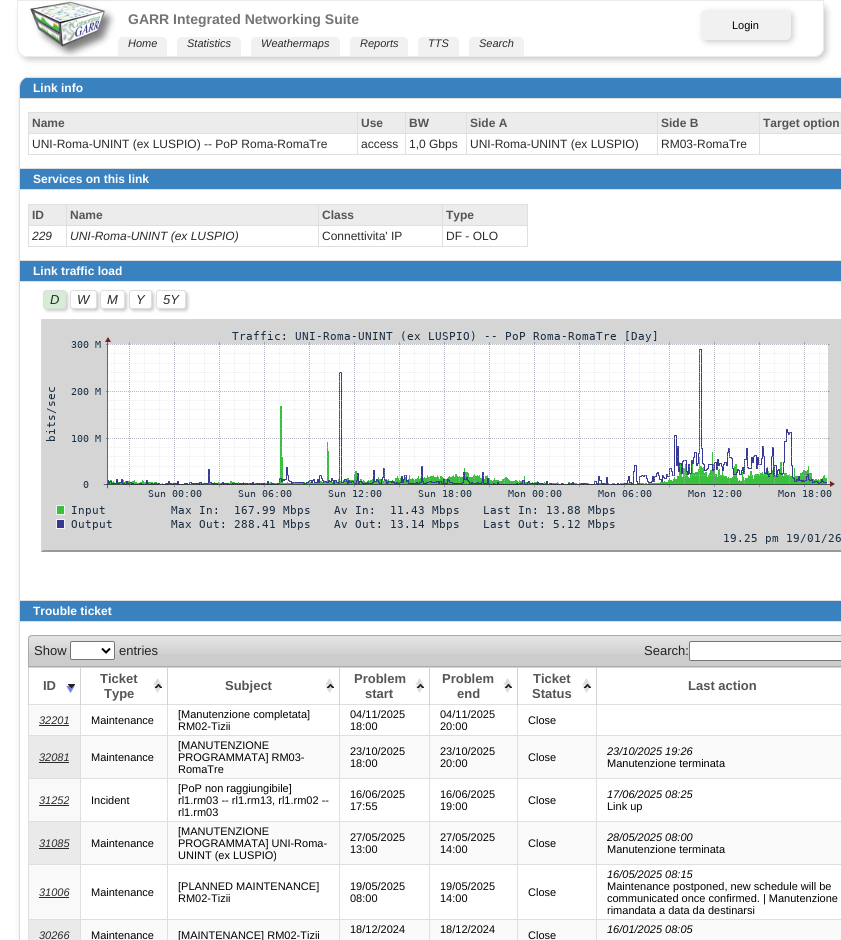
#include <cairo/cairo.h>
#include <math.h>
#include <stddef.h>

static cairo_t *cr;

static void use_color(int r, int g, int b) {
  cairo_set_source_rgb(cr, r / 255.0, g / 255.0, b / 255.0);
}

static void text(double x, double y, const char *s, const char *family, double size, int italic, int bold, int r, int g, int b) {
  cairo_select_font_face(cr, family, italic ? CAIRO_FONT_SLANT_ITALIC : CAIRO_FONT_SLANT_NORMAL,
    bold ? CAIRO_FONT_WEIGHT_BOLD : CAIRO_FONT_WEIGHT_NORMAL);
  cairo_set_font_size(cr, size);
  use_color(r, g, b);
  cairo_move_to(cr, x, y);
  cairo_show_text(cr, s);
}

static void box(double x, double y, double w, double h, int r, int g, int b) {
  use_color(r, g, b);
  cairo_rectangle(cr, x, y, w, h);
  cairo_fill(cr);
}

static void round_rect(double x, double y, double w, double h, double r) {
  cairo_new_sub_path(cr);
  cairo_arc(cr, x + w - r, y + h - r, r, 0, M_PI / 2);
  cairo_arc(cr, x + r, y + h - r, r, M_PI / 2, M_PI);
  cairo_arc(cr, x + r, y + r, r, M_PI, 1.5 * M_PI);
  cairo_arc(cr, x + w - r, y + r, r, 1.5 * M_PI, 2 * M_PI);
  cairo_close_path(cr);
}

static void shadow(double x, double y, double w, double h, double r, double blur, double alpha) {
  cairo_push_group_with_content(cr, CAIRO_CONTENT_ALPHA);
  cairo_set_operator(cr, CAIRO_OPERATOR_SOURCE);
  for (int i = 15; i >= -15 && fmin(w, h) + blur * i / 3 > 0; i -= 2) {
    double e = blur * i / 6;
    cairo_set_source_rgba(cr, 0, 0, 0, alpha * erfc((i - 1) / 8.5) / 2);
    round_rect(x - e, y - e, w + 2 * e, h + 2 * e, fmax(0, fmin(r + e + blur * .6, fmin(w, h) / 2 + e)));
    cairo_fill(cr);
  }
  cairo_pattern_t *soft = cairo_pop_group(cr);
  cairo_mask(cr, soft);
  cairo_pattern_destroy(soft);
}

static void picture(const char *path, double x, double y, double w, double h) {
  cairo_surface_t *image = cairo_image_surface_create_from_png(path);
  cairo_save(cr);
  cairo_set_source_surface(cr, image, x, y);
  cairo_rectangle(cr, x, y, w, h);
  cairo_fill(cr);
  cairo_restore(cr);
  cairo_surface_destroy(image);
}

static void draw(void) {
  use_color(255, 255, 255);
  cairo_paint(cr);
  cairo_save(cr);
  cairo_set_fill_rule(cr, CAIRO_FILL_RULE_EVEN_ODD);
  cairo_new_path(cr);
  cairo_move_to(cr, 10, 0);
  cairo_line_to(cr, 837, 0);
  cairo_line_to(cr, 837, 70);
  cairo_line_to(cr, 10, 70);
  cairo_close_path(cr);
  cairo_move_to(cr, 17, 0);
  cairo_line_to(cr, 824, 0);
  cairo_line_to(cr, 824, 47);
  cairo_curve_to(cr, 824, 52.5, 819.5, 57, 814, 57);
  cairo_line_to(cr, 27, 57);
  cairo_curve_to(cr, 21.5, 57, 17, 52.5, 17, 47);
  cairo_close_path(cr);
  cairo_clip(cr);
  use_color(204, 204, 204);
  shadow(20, 3, 807, 57, 10, 3, 1);
  cairo_restore(cr);
  picture("img_01.png", 30, 1, 86, 55);
  cairo_new_path(cr);
  cairo_move_to(cr, 17.5, 0.5);
  cairo_line_to(cr, 823.5, 0.5);
  cairo_line_to(cr, 823.5, 47);
  cairo_curve_to(cr, 823.5, 52, 819, 56.5, 814, 56.5);
  cairo_line_to(cr, 27, 56.5);
  cairo_curve_to(cr, 22, 56.5, 17.5, 52, 17.5, 47);
  cairo_close_path(cr);
  use_color(234, 234, 234);
  cairo_set_line_width(cr, 1);
  cairo_stroke(cr);
  use_color(204, 204, 204);
  shadow(703, 12, 90, 30, 5, 3, 1);
  use_color(241, 241, 241);
  round_rect(701, 10, 90, 30, 5);
  cairo_fill(cr);
  cairo_new_path(cr);
  cairo_move_to(cr, 123, 37);
  cairo_line_to(cr, 162, 37);
  cairo_curve_to(cr, 165, 37, 167, 39, 167, 42);
  cairo_line_to(cr, 167, 56);
  cairo_line_to(cr, 118, 56);
  cairo_line_to(cr, 118, 42);
  cairo_curve_to(cr, 118, 39, 120, 37, 123, 37);
  cairo_close_path(cr);
  cairo_fill(cr);
  cairo_new_path(cr);
  cairo_move_to(cr, 182, 37);
  cairo_line_to(cr, 236, 37);
  cairo_curve_to(cr, 239, 37, 241, 39, 241, 42);
  cairo_line_to(cr, 241, 56);
  cairo_line_to(cr, 177, 56);
  cairo_line_to(cr, 177, 42);
  cairo_curve_to(cr, 177, 39, 179, 37, 182, 37);
  cairo_close_path(cr);
  cairo_fill(cr);
  cairo_new_path(cr);
  cairo_move_to(cr, 256, 37);
  cairo_line_to(cr, 335, 37);
  cairo_curve_to(cr, 338, 37, 340, 39, 340, 42);
  cairo_line_to(cr, 340, 56);
  cairo_line_to(cr, 251, 56);
  cairo_line_to(cr, 251, 42);
  cairo_curve_to(cr, 251, 39, 253, 37, 256, 37);
  cairo_close_path(cr);
  cairo_fill(cr);
  cairo_new_path(cr);
  cairo_move_to(cr, 355, 37);
  cairo_line_to(cr, 403, 37);
  cairo_curve_to(cr, 406, 37, 408, 39, 408, 42);
  cairo_line_to(cr, 408, 56);
  cairo_line_to(cr, 350, 56);
  cairo_line_to(cr, 350, 42);
  cairo_curve_to(cr, 350, 39, 352, 37, 355, 37);
  cairo_close_path(cr);
  cairo_fill(cr);
  cairo_new_path(cr);
  cairo_move_to(cr, 423, 37);
  cairo_line_to(cr, 454, 37);
  cairo_curve_to(cr, 457, 37, 459, 39, 459, 42);
  cairo_line_to(cr, 459, 56);
  cairo_line_to(cr, 418, 56);
  cairo_line_to(cr, 418, 42);
  cairo_curve_to(cr, 418, 39, 420, 37, 423, 37);
  cairo_close_path(cr);
  cairo_fill(cr);
  cairo_new_path(cr);
  cairo_move_to(cr, 474, 37);
  cairo_line_to(cr, 519, 37);
  cairo_curve_to(cr, 522, 37, 524, 39, 524, 42);
  cairo_line_to(cr, 524, 56);
  cairo_line_to(cr, 469, 56);
  cairo_line_to(cr, 469, 42);
  cairo_curve_to(cr, 469, 39, 471, 37, 474, 37);
  cairo_close_path(cr);
  cairo_fill(cr);
  use_color(204, 204, 204);
  shadow(21, 79, 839, 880, 10, 3, 1);
  use_color(255, 255, 255);
  round_rect(19.5, 77.5, 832, 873, 9.5);
  cairo_fill_preserve(cr);
  use_color(222, 222, 222);
  cairo_stroke(cr);
  use_color(58, 129, 191);
  cairo_new_path(cr);
  cairo_move_to(cr, 30, 77);
  cairo_line_to(cr, 841, 77);
  cairo_curve_to(cr, 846.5, 77, 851, 81.5, 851, 87);
  cairo_line_to(cr, 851, 99);
  cairo_line_to(cr, 20, 99);
  cairo_line_to(cr, 20, 87);
  cairo_curve_to(cr, 20, 81.5, 24.5, 77, 30, 77);
  cairo_close_path(cr);
  cairo_fill(cr);
  box(25, 77, 816, 1, 223, 223, 223);
  box(20, 98, 821, 1, 223, 223, 223);
  box(29, 113, 328, 20, 236, 236, 236);
  box(759, 112, 82, 1, 223, 223, 223);
  box(759, 133, 82, 1, 223, 223, 223);
  box(759, 154, 82, 1, 223, 223, 223);
  box(759, 133, 1, 22, 223, 223, 223);
  box(657, 133, 103, 1, 223, 223, 223);
  box(759, 112, 1, 22, 223, 223, 223);
  box(657, 112, 103, 1, 223, 223, 223);
  box(657, 154, 103, 1, 223, 223, 223);
  box(657, 133, 1, 22, 223, 223, 223);
  box(466, 133, 192, 1, 223, 223, 223);
  box(657, 112, 1, 22, 223, 223, 223);
  box(466, 112, 192, 1, 223, 223, 223);
  box(466, 154, 192, 1, 223, 223, 223);
  box(466, 133, 1, 22, 223, 223, 223);
  box(405, 133, 62, 1, 223, 223, 223);
  box(466, 112, 1, 22, 223, 223, 223);
  box(405, 112, 62, 1, 223, 223, 223);
  box(405, 154, 62, 1, 223, 223, 223);
  box(405, 133, 1, 22, 223, 223, 223);
  box(357, 133, 49, 1, 223, 223, 223);
  box(405, 112, 1, 22, 223, 223, 223);
  box(357, 112, 49, 1, 223, 223, 223);
  box(357, 154, 49, 1, 223, 223, 223);
  box(357, 133, 1, 22, 223, 223, 223);
  box(28, 133, 330, 1, 223, 223, 223);
  box(357, 112, 1, 22, 223, 223, 223);
  box(28, 112, 330, 1, 223, 223, 223);
  box(28, 154, 330, 1, 223, 223, 223);
  box(28, 133, 1, 22, 223, 223, 223);
  box(28, 112, 1, 22, 223, 223, 223);
  box(358, 113, 47, 20, 236, 236, 236);
  box(406, 113, 60, 20, 236, 236, 236);
  box(467, 113, 190, 20, 236, 236, 236);
  box(658, 113, 101, 20, 236, 236, 236);
  box(760, 113, 81, 20, 236, 236, 236);
  box(20, 169, 821, 20, 58, 129, 191);
  box(20, 168, 821, 1, 223, 223, 223);
  box(20, 189, 821, 1, 223, 223, 223);
  box(29, 205, 37, 20, 236, 236, 236);
  box(442, 204, 86, 1, 223, 223, 223);
  box(442, 225, 86, 1, 223, 223, 223);
  box(527, 225, 1, 22, 223, 223, 223);
  box(442, 246, 86, 1, 223, 223, 223);
  box(442, 225, 1, 22, 223, 223, 223);
  box(318, 225, 125, 1, 223, 223, 223);
  box(442, 204, 1, 22, 223, 223, 223);
  box(318, 204, 125, 1, 223, 223, 223);
  box(318, 246, 125, 1, 223, 223, 223);
  box(318, 225, 1, 22, 223, 223, 223);
  box(66, 225, 253, 1, 223, 223, 223);
  box(318, 204, 1, 22, 223, 223, 223);
  box(66, 204, 253, 1, 223, 223, 223);
  box(66, 246, 253, 1, 223, 223, 223);
  box(66, 225, 1, 22, 223, 223, 223);
  box(28, 225, 39, 1, 223, 223, 223);
  box(66, 204, 1, 22, 223, 223, 223);
  box(28, 204, 39, 1, 223, 223, 223);
  box(28, 246, 39, 1, 223, 223, 223);
  box(28, 225, 1, 22, 223, 223, 223);
  box(28, 204, 1, 22, 223, 223, 223);
  box(67, 205, 251, 20, 236, 236, 236);
  box(319, 205, 123, 20, 236, 236, 236);
  box(443, 205, 84, 20, 236, 236, 236);
  box(527, 204, 1, 22, 223, 223, 223);
  box(20, 261, 821, 20, 58, 129, 191);
  box(20, 260, 821, 1, 223, 223, 223);
  box(20, 281, 821, 1, 223, 223, 223);
  use_color(204, 204, 204);
  shadow(45, 292, 23, 19, 3, 1.5, 1);
  use_color(213, 236, 213);
  round_rect(43.5, 290.5, 22, 18, 2.5);
  cairo_fill_preserve(cr);
  use_color(222, 222, 222);
  cairo_stroke(cr);
  use_color(204, 204, 204);
  shadow(72, 292, 27, 19, 3, 1.5, 1);
  use_color(255, 255, 255);
  round_rect(70.5, 290.5, 26, 18, 2.5);
  cairo_fill_preserve(cr);
  use_color(222, 222, 222);
  cairo_stroke(cr);
  use_color(204, 204, 204);
  shadow(102, 292, 25, 19, 3, 1.5, 1);
  use_color(255, 255, 255);
  round_rect(100.5, 290.5, 24, 18, 2.5);
  cairo_fill_preserve(cr);
  use_color(222, 222, 222);
  cairo_stroke(cr);
  use_color(204, 204, 204);
  shadow(131, 292, 23, 19, 3, 1.5, 1);
  use_color(255, 255, 255);
  round_rect(129.5, 290.5, 22, 18, 2.5);
  cairo_fill_preserve(cr);
  use_color(222, 222, 222);
  cairo_stroke(cr);
  use_color(204, 204, 204);
  shadow(158, 292, 30, 19, 3, 1.5, 1);
  use_color(255, 255, 255);
  round_rect(156.5, 290.5, 29, 18, 2.5);
  cairo_fill_preserve(cr);
  use_color(222, 222, 222);
  cairo_stroke(cr);
  picture("img_02.png", 41, 319, 800, 233);
  box(20, 601, 821, 20, 58, 129, 191);
  box(20, 600, 821, 1, 223, 223, 223);
  box(20, 621, 821, 1, 223, 223, 223);
  use_color(204, 204, 204);
  cairo_new_path(cr);
  cairo_move_to(cr, 32, 635);
  cairo_line_to(cr, 841, 635);
  cairo_curve_to(cr, 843, 635, 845, 637, 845, 639);
  cairo_line_to(cr, 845, 667);
  cairo_line_to(cr, 28, 667);
  cairo_line_to(cr, 28, 639);
  cairo_curve_to(cr, 28, 637, 30, 635, 32, 635);
  cairo_close_path(cr);
  cairo_fill(cr);
  picture("img_03.png", 28, 635, 813, 19);
  cairo_new_path(cr);
  cairo_move_to(cr, 32, 635.5);
  cairo_line_to(cr, 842, 635.5);
  cairo_curve_to(cr, 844, 635.5, 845.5, 637, 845.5, 639);
  cairo_line_to(cr, 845.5, 666.5);
  cairo_line_to(cr, 28.5, 666.5);
  cairo_line_to(cr, 28.5, 639);
  cairo_curve_to(cr, 28.5, 637, 30, 635.5, 32, 635.5);
  cairo_close_path(cr);
  use_color(170, 170, 170);
  cairo_stroke(cr);
  use_color(255, 255, 255);
  round_rect(70.5, 641.5, 44, 18, 1.5);
  cairo_fill_preserve(cr);
  use_color(118, 118, 118);
  cairo_stroke(cr);
  cairo_new_path(cr);
  cairo_move_to(cr, 102, 648.5);
  cairo_line_to(cr, 106, 652.5);
  cairo_line_to(cr, 110, 648.5);
  use_color(0, 0, 0);
  cairo_set_line_width(cr, 2);
  cairo_stroke(cr);
  use_color(255, 255, 255);
  round_rect(689.5, 641.5, 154, 19, 1.5);
  cairo_fill_preserve(cr);
  use_color(118, 118, 118);
  cairo_set_line_width(cr, 1);
  cairo_stroke(cr);
  picture("img_04.png", 66, 686, 9, 7);
  box(596, 667, 245, 1, 211, 211, 211);
  box(596, 704, 245, 1, 223, 223, 223);
  box(596, 735, 245, 1, 223, 223, 223);
  box(81, 736, 760, 42, 250, 250, 250);
  box(596, 778, 245, 1, 223, 223, 223);
  box(596, 821, 245, 1, 223, 223, 223);
  box(81, 822, 760, 42, 250, 250, 250);
  box(596, 864, 245, 1, 223, 223, 223);
  box(596, 919, 245, 1, 223, 223, 223);
  box(81, 920, 760, 20, 250, 250, 250);
  box(596, 919, 1, 21, 223, 223, 223);
  box(517, 919, 80, 1, 223, 223, 223);
  box(596, 864, 1, 56, 223, 223, 223);
  box(517, 864, 80, 1, 223, 223, 223);
  box(596, 821, 1, 44, 223, 223, 223);
  box(517, 821, 80, 1, 223, 223, 223);
  box(596, 778, 1, 44, 223, 223, 223);
  box(517, 778, 80, 1, 223, 223, 223);
  box(596, 735, 1, 44, 223, 223, 223);
  box(517, 735, 80, 1, 223, 223, 223);
  box(596, 704, 1, 32, 223, 223, 223);
  box(517, 704, 80, 1, 223, 223, 223);
  box(596, 667, 1, 38, 211, 211, 211);
  box(517, 667, 80, 1, 211, 211, 211);
  box(517, 919, 1, 21, 223, 223, 223);
  box(429, 919, 89, 1, 223, 223, 223);
  box(517, 864, 1, 56, 223, 223, 223);
  box(429, 864, 89, 1, 223, 223, 223);
  box(517, 821, 1, 44, 223, 223, 223);
  box(429, 821, 89, 1, 223, 223, 223);
  box(517, 778, 1, 44, 223, 223, 223);
  box(429, 778, 89, 1, 223, 223, 223);
  box(517, 735, 1, 44, 223, 223, 223);
  box(429, 735, 89, 1, 223, 223, 223);
  box(517, 704, 1, 32, 223, 223, 223);
  box(429, 704, 89, 1, 223, 223, 223);
  box(517, 667, 1, 38, 211, 211, 211);
  box(429, 667, 89, 1, 211, 211, 211);
  box(429, 919, 1, 21, 223, 223, 223);
  box(339, 919, 91, 1, 223, 223, 223);
  box(429, 864, 1, 56, 223, 223, 223);
  box(339, 864, 91, 1, 223, 223, 223);
  box(429, 821, 1, 44, 223, 223, 223);
  box(339, 821, 91, 1, 223, 223, 223);
  box(429, 778, 1, 44, 223, 223, 223);
  box(339, 778, 91, 1, 223, 223, 223);
  box(429, 735, 1, 44, 223, 223, 223);
  box(339, 735, 91, 1, 223, 223, 223);
  box(429, 704, 1, 32, 223, 223, 223);
  box(339, 704, 91, 1, 223, 223, 223);
  box(429, 667, 1, 38, 211, 211, 211);
  box(339, 667, 91, 1, 211, 211, 211);
  box(339, 919, 1, 21, 223, 223, 223);
  box(167, 919, 173, 1, 223, 223, 223);
  box(339, 864, 1, 56, 223, 223, 223);
  box(167, 864, 173, 1, 223, 223, 223);
  box(339, 821, 1, 44, 223, 223, 223);
  box(167, 821, 173, 1, 223, 223, 223);
  box(339, 778, 1, 44, 223, 223, 223);
  box(167, 778, 173, 1, 223, 223, 223);
  box(339, 735, 1, 44, 223, 223, 223);
  box(167, 735, 173, 1, 223, 223, 223);
  box(339, 704, 1, 32, 223, 223, 223);
  box(167, 704, 173, 1, 223, 223, 223);
  box(339, 667, 1, 38, 211, 211, 211);
  box(167, 667, 173, 1, 211, 211, 211);
  box(167, 919, 1, 21, 223, 223, 223);
  box(80, 919, 88, 1, 223, 223, 223);
  box(167, 864, 1, 56, 223, 223, 223);
  box(80, 864, 88, 1, 223, 223, 223);
  box(167, 821, 1, 44, 223, 223, 223);
  box(80, 821, 88, 1, 223, 223, 223);
  box(167, 778, 1, 44, 223, 223, 223);
  box(80, 778, 88, 1, 223, 223, 223);
  box(167, 735, 1, 44, 223, 223, 223);
  box(80, 735, 88, 1, 223, 223, 223);
  box(167, 704, 1, 32, 223, 223, 223);
  box(80, 704, 88, 1, 223, 223, 223);
  box(167, 667, 1, 38, 211, 211, 211);
  box(80, 667, 88, 1, 211, 211, 211);
  box(80, 919, 1, 21, 223, 223, 223);
  box(28, 919, 53, 1, 223, 223, 223);
  box(80, 864, 1, 56, 223, 223, 223);
  box(28, 864, 53, 1, 223, 223, 223);
  box(80, 821, 1, 44, 223, 223, 223);
  box(28, 821, 53, 1, 223, 223, 223);
  box(80, 778, 1, 44, 223, 223, 223);
  box(28, 778, 53, 1, 223, 223, 223);
  box(80, 735, 1, 44, 223, 223, 223);
  box(28, 735, 53, 1, 223, 223, 223);
  box(80, 704, 1, 32, 223, 223, 223);
  box(28, 704, 53, 1, 223, 223, 223);
  box(80, 667, 1, 38, 211, 211, 211);
  box(28, 667, 53, 1, 211, 211, 211);
  box(28, 919, 1, 21, 223, 223, 223);
  box(28, 864, 1, 56, 223, 223, 223);
  box(28, 821, 1, 44, 223, 223, 223);
  box(28, 778, 1, 44, 223, 223, 223);
  box(28, 735, 1, 44, 223, 223, 223);
  box(28, 704, 1, 32, 223, 223, 223);
  box(28, 667, 1, 38, 211, 211, 211);
  picture("img_05.png", 68, 684, 7, 4);
  picture("img_06.png", 153, 678, 9, 15);
  picture("img_07.png", 155, 684, 7, 4);
  picture("img_06.png", 325, 678, 9, 15);
  picture("img_07.png", 327, 684, 7, 4);
  picture("img_06.png", 415, 678, 9, 15);
  picture("img_07.png", 417, 684, 7, 4);
  picture("img_06.png", 503, 678, 9, 15);
  picture("img_07.png", 505, 684, 7, 4);
  picture("img_06.png", 582, 678, 9, 15);
  picture("img_07.png", 584, 684, 7, 4);
  box(29, 705, 51, 30, 249, 249, 249);
  box(39, 725, 30, 1, 42, 42, 42);
  box(29, 736, 51, 42, 234, 234, 234);
  box(39, 762, 30, 1, 42, 42, 42);
  box(29, 779, 51, 42, 249, 249, 249);
  box(39, 805, 30, 1, 42, 42, 42);
  box(29, 822, 51, 42, 234, 234, 234);
  box(39, 848, 30, 1, 42, 42, 42);
  box(29, 865, 51, 54, 249, 249, 249);
  box(39, 897, 30, 1, 42, 42, 42);
  box(29, 920, 51, 20, 234, 234, 234);
  text(128, 24, "GARR Integrated Networking Suite", "Liberation Sans", 14, 0, 1, 116, 116, 116);
  text(732, 29, "Login", "Liberation Sans", 11, 0, 0, 0, 0, 0);
  text(128, 47, "Home", "Liberation Sans", 11, 1, 0, 42, 42, 42);
  text(187, 47, "Statistics", "Liberation Sans", 11, 1, 0, 42, 42, 42);
  text(261, 47, "Weathermaps", "Liberation Sans", 11, 1, 0, 42, 42, 42);
  text(360, 47, "Reports", "Liberation Sans", 11, 1, 0, 42, 42, 42);
  text(428, 47, "TTS", "Liberation Sans", 11, 1, 0, 42, 42, 42);
  text(479, 47, "Search", "Liberation Sans", 11, 1, 0, 42, 42, 42);
  text(33, 92, "Link info", "Liberation Sans", 12, 0, 1, 255, 255, 255);
  text(32, 127, "Name", "Liberation Sans", 12, 0, 1, 85, 85, 85);
  text(361, 127, "Use", "Liberation Sans", 12, 0, 1, 85, 85, 85);
  text(409, 127, "BW", "Liberation Sans", 12, 0, 1, 85, 85, 85);
  text(470, 127, "Side A", "Liberation Sans", 12, 0, 1, 85, 85, 85);
  text(661, 127, "Side B", "Liberation Sans", 12, 0, 1, 85, 85, 85);
  text(763, 127, "Target option", "Liberation Sans", 12, 0, 1, 85, 85, 85);
  text(32, 148, "UNI-Roma-UNINT (ex LUSPIO) -- PoP Roma-RomaTre", "Liberation Sans", 12, 0, 0, 42, 42, 42);
  text(361, 148, "access", "Liberation Sans", 12, 0, 0, 42, 42, 42);
  text(409, 148, "1,0 Gbps", "Liberation Sans", 12, 0, 0, 42, 42, 42);
  text(470, 148, "UNI-Roma-UNINT (ex LUSPIO)", "Liberation Sans", 12, 0, 0, 42, 42, 42);
  text(661, 148, "RM03-RomaTre", "Liberation Sans", 12, 0, 0, 42, 42, 42);
  text(33, 183, "Services on this link", "Liberation Sans", 12, 0, 1, 255, 255, 255);
  text(32, 219, "ID", "Liberation Sans", 12, 0, 1, 85, 85, 85);
  text(70, 219, "Name", "Liberation Sans", 12, 0, 1, 85, 85, 85);
  text(322, 219, "Class", "Liberation Sans", 12, 0, 1, 85, 85, 85);
  text(446, 219, "Type", "Liberation Sans", 12, 0, 1, 85, 85, 85);
  text(32, 240, "229", "Liberation Sans", 12, 1, 0, 42, 42, 42);
  text(70, 240, "UNI-Roma-UNINT (ex LUSPIO)", "Liberation Sans", 12, 1, 0, 42, 42, 42);
  text(322, 240, "Connettivita' IP", "Liberation Sans", 12, 0, 0, 42, 42, 42);
  text(446, 240, "DF - OLO", "Liberation Sans", 12, 0, 0, 42, 42, 42);
  text(33, 275, "Link traffic load", "Liberation Sans", 12, 0, 1, 255, 255, 255);
  text(50, 304, "D", "Liberation Sans", 13, 1, 0, 42, 42, 42);
  text(77, 304, "W", "Liberation Sans", 13, 1, 0, 42, 42, 42);
  text(107, 304, "M", "Liberation Sans", 13, 1, 0, 42, 42, 42);
  text(136, 304, "Y", "Liberation Sans", 13, 1, 0, 42, 42, 42);
  text(163, 304, "5Y", "Liberation Sans", 13, 1, 0, 42, 42, 42);
  text(33, 615, "Trouble ticket", "Liberation Sans", 12, 0, 1, 255, 255, 255);
  text(34, 655, "Show", "Liberation Sans", 13, 0, 0, 34, 34, 34);
  text(119, 655, "entries", "Liberation Sans", 13, 0, 0, 34, 34, 34);
  text(644, 655, "Search:", "Liberation Sans", 13, 0, 0, 34, 34, 34);
  text(43, 690, "ID", "Liberation Sans", 13, 0, 1, 85, 85, 85);
  text(100, 683, "Ticket", "Liberation Sans", 13, 0, 1, 85, 85, 85);
  text(104, 698, "Type", "Liberation Sans", 13, 0, 1, 85, 85, 85);
  text(225, 690, "Subject", "Liberation Sans", 13, 0, 1, 85, 85, 85);
  text(354, 683, "Problem", "Liberation Sans", 13, 0, 1, 85, 85, 85);
  text(365, 698, "start", "Liberation Sans", 13, 0, 1, 85, 85, 85);
  text(442, 683, "Problem", "Liberation Sans", 13, 0, 1, 85, 85, 85);
  text(457, 698, "end", "Liberation Sans", 13, 0, 1, 85, 85, 85);
  text(533, 683, "Ticket", "Liberation Sans", 13, 0, 1, 85, 85, 85);
  text(532, 698, "Status", "Liberation Sans", 13, 0, 1, 85, 85, 85);
  text(688, 690, "Last action", "Liberation Sans", 13, 0, 1, 85, 85, 85);
  text(39, 724, "32201", "Liberation Sans", 11, 1, 0, 42, 42, 42);
  text(91, 724, "Maintenance", "Liberation Sans", 11, 0, 0, 0, 0, 0);
  text(178, 718, "[Manutenzione completata]", "Liberation Sans", 11, 0, 0, 0, 0, 0);
  text(178, 730, "RM02-Tizii", "Liberation Sans", 11, 0, 0, 0, 0, 0);
  text(350, 718, "04/11/2025", "Liberation Sans", 11, 0, 0, 0, 0, 0);
  text(350, 730, "18:00", "Liberation Sans", 11, 0, 0, 0, 0, 0);
  text(440, 718, "04/11/2025", "Liberation Sans", 11, 0, 0, 0, 0, 0);
  text(440, 730, "20:00", "Liberation Sans", 11, 0, 0, 0, 0, 0);
  text(528, 724, "Close", "Liberation Sans", 11, 0, 0, 0, 0, 0);
  text(39, 761, "32081", "Liberation Sans", 11, 1, 0, 42, 42, 42);
  text(91, 761, "Maintenance", "Liberation Sans", 11, 0, 0, 0, 0, 0);
  text(178, 749, "[MANUTENZIONE", "Liberation Sans", 11, 0, 0, 0, 0, 0);
  text(178, 761, "PROGRAMMATA] RM03-", "Liberation Sans", 11, 0, 0, 0, 0, 0);
  text(178, 773, "RomaTre", "Liberation Sans", 11, 0, 0, 0, 0, 0);
  text(350, 755, "23/10/2025", "Liberation Sans", 11, 0, 0, 0, 0, 0);
  text(350, 767, "18:00", "Liberation Sans", 11, 0, 0, 0, 0, 0);
  text(440, 755, "23/10/2025", "Liberation Sans", 11, 0, 0, 0, 0, 0);
  text(440, 767, "20:00", "Liberation Sans", 11, 0, 0, 0, 0, 0);
  text(528, 761, "Close", "Liberation Sans", 11, 0, 0, 0, 0, 0);
  text(607, 755, "23/10/2025 19:26", "Liberation Sans", 11, 1, 0, 0, 0, 0);
  text(607, 767, "Manutenzione terminata", "Liberation Sans", 11, 0, 0, 0, 0, 0);
  text(39, 804, "31252", "Liberation Sans", 11, 1, 0, 42, 42, 42);
  text(91, 804, "Incident", "Liberation Sans", 11, 0, 0, 0, 0, 0);
  text(178, 792, "[PoP non raggiungibile]", "Liberation Sans", 11, 0, 0, 0, 0, 0);
  text(178, 804, "rl1.rm03 -- rl1.rm13, rl1.rm02 --", "Liberation Sans", 11, 0, 0, 0, 0, 0);
  text(178, 816, "rl1.rm03", "Liberation Sans", 11, 0, 0, 0, 0, 0);
  text(350, 798, "16/06/2025", "Liberation Sans", 11, 0, 0, 0, 0, 0);
  text(350, 810, "17:55", "Liberation Sans", 11, 0, 0, 0, 0, 0);
  text(440, 798, "16/06/2025", "Liberation Sans", 11, 0, 0, 0, 0, 0);
  text(440, 810, "19:00", "Liberation Sans", 11, 0, 0, 0, 0, 0);
  text(528, 804, "Close", "Liberation Sans", 11, 0, 0, 0, 0, 0);
  text(607, 798, "17/06/2025 08:25", "Liberation Sans", 11, 1, 0, 0, 0, 0);
  text(607, 810, "Link up", "Liberation Sans", 11, 0, 0, 0, 0, 0);
  text(39, 847, "31085", "Liberation Sans", 11, 1, 0, 42, 42, 42);
  text(91, 847, "Maintenance", "Liberation Sans", 11, 0, 0, 0, 0, 0);
  text(178, 835, "[MANUTENZIONE", "Liberation Sans", 11, 0, 0, 0, 0, 0);
  text(178, 847, "PROGRAMMATA] UNI-Roma-", "Liberation Sans", 11, 0, 0, 0, 0, 0);
  text(178, 859, "UNINT (ex LUSPIO)", "Liberation Sans", 11, 0, 0, 0, 0, 0);
  text(350, 841, "27/05/2025", "Liberation Sans", 11, 0, 0, 0, 0, 0);
  text(350, 853, "13:00", "Liberation Sans", 11, 0, 0, 0, 0, 0);
  text(440, 841, "27/05/2025", "Liberation Sans", 11, 0, 0, 0, 0, 0);
  text(440, 853, "14:00", "Liberation Sans", 11, 0, 0, 0, 0, 0);
  text(528, 847, "Close", "Liberation Sans", 11, 0, 0, 0, 0, 0);
  text(607, 841, "28/05/2025 08:00", "Liberation Sans", 11, 1, 0, 0, 0, 0);
  text(607, 853, "Manutenzione terminata", "Liberation Sans", 11, 0, 0, 0, 0, 0);
  text(39, 896, "31006", "Liberation Sans", 11, 1, 0, 42, 42, 42);
  text(91, 896, "Maintenance", "Liberation Sans", 11, 0, 0, 0, 0, 0);
  text(178, 890, "[PLANNED MAINTENANCE]", "Liberation Sans", 11, 0, 0, 0, 0, 0);
  text(178, 902, "RM02-Tizii", "Liberation Sans", 11, 0, 0, 0, 0, 0);
  text(350, 890, "19/05/2025", "Liberation Sans", 11, 0, 0, 0, 0, 0);
  text(350, 902, "08:00", "Liberation Sans", 11, 0, 0, 0, 0, 0);
  text(440, 890, "19/05/2025", "Liberation Sans", 11, 0, 0, 0, 0, 0);
  text(440, 902, "14:00", "Liberation Sans", 11, 0, 0, 0, 0, 0);
  text(528, 896, "Close", "Liberation Sans", 11, 0, 0, 0, 0, 0);
  text(607, 878, "16/05/2025 08:15", "Liberation Sans", 11, 1, 0, 0, 0, 0);
  text(607, 890, "Maintenance postponed, new schedule will be", "Liberation Sans", 11, 0, 0, 0, 0, 0);
  text(607, 902, "communicated once confirmed. | Manutenzione", "Liberation Sans", 11, 0, 0, 0, 0, 0);
  text(607, 914, "rimandata a data da destinarsi", "Liberation Sans", 11, 0, 0, 0, 0, 0);
  text(350, 933, "18/12/2024", "Liberation Sans", 11, 0, 0, 0, 0, 0);
  text(440, 933, "18/12/2024", "Liberation Sans", 11, 0, 0, 0, 0, 0);
  text(607, 933, "16/01/2025 08:05", "Liberation Sans", 11, 1, 0, 0, 0, 0);
  text(39, 939, "30266", "Liberation Sans", 11, 1, 0, 42, 42, 42);
  text(91, 939, "Maintenance", "Liberation Sans", 11, 0, 0, 0, 0, 0);
  text(178, 939, "[MAINTENANCE] RM02-Tizii", "Liberation Sans", 11, 0, 0, 0, 0, 0);
  text(528, 939, "Close", "Liberation Sans", 11, 0, 0, 0, 0, 0);
}

int main(void) {
  cairo_surface_t *surface = cairo_image_surface_create(CAIRO_FORMAT_RGB24, 841, 940);
  cr = cairo_create(surface);
  cairo_font_options_t *options = cairo_font_options_create();
  cairo_font_options_set_hint_metrics(options, CAIRO_HINT_METRICS_OFF);
  cairo_font_options_set_hint_style(options, CAIRO_HINT_STYLE_NONE);
  cairo_set_font_options(cr, options);
  cairo_set_miter_limit(cr, 4);
  draw();
  cairo_surface_write_to_png(surface, "out.png");
  cairo_font_options_destroy(options);
  cairo_destroy(cr);
  cairo_surface_destroy(surface);
  return 0;
}
